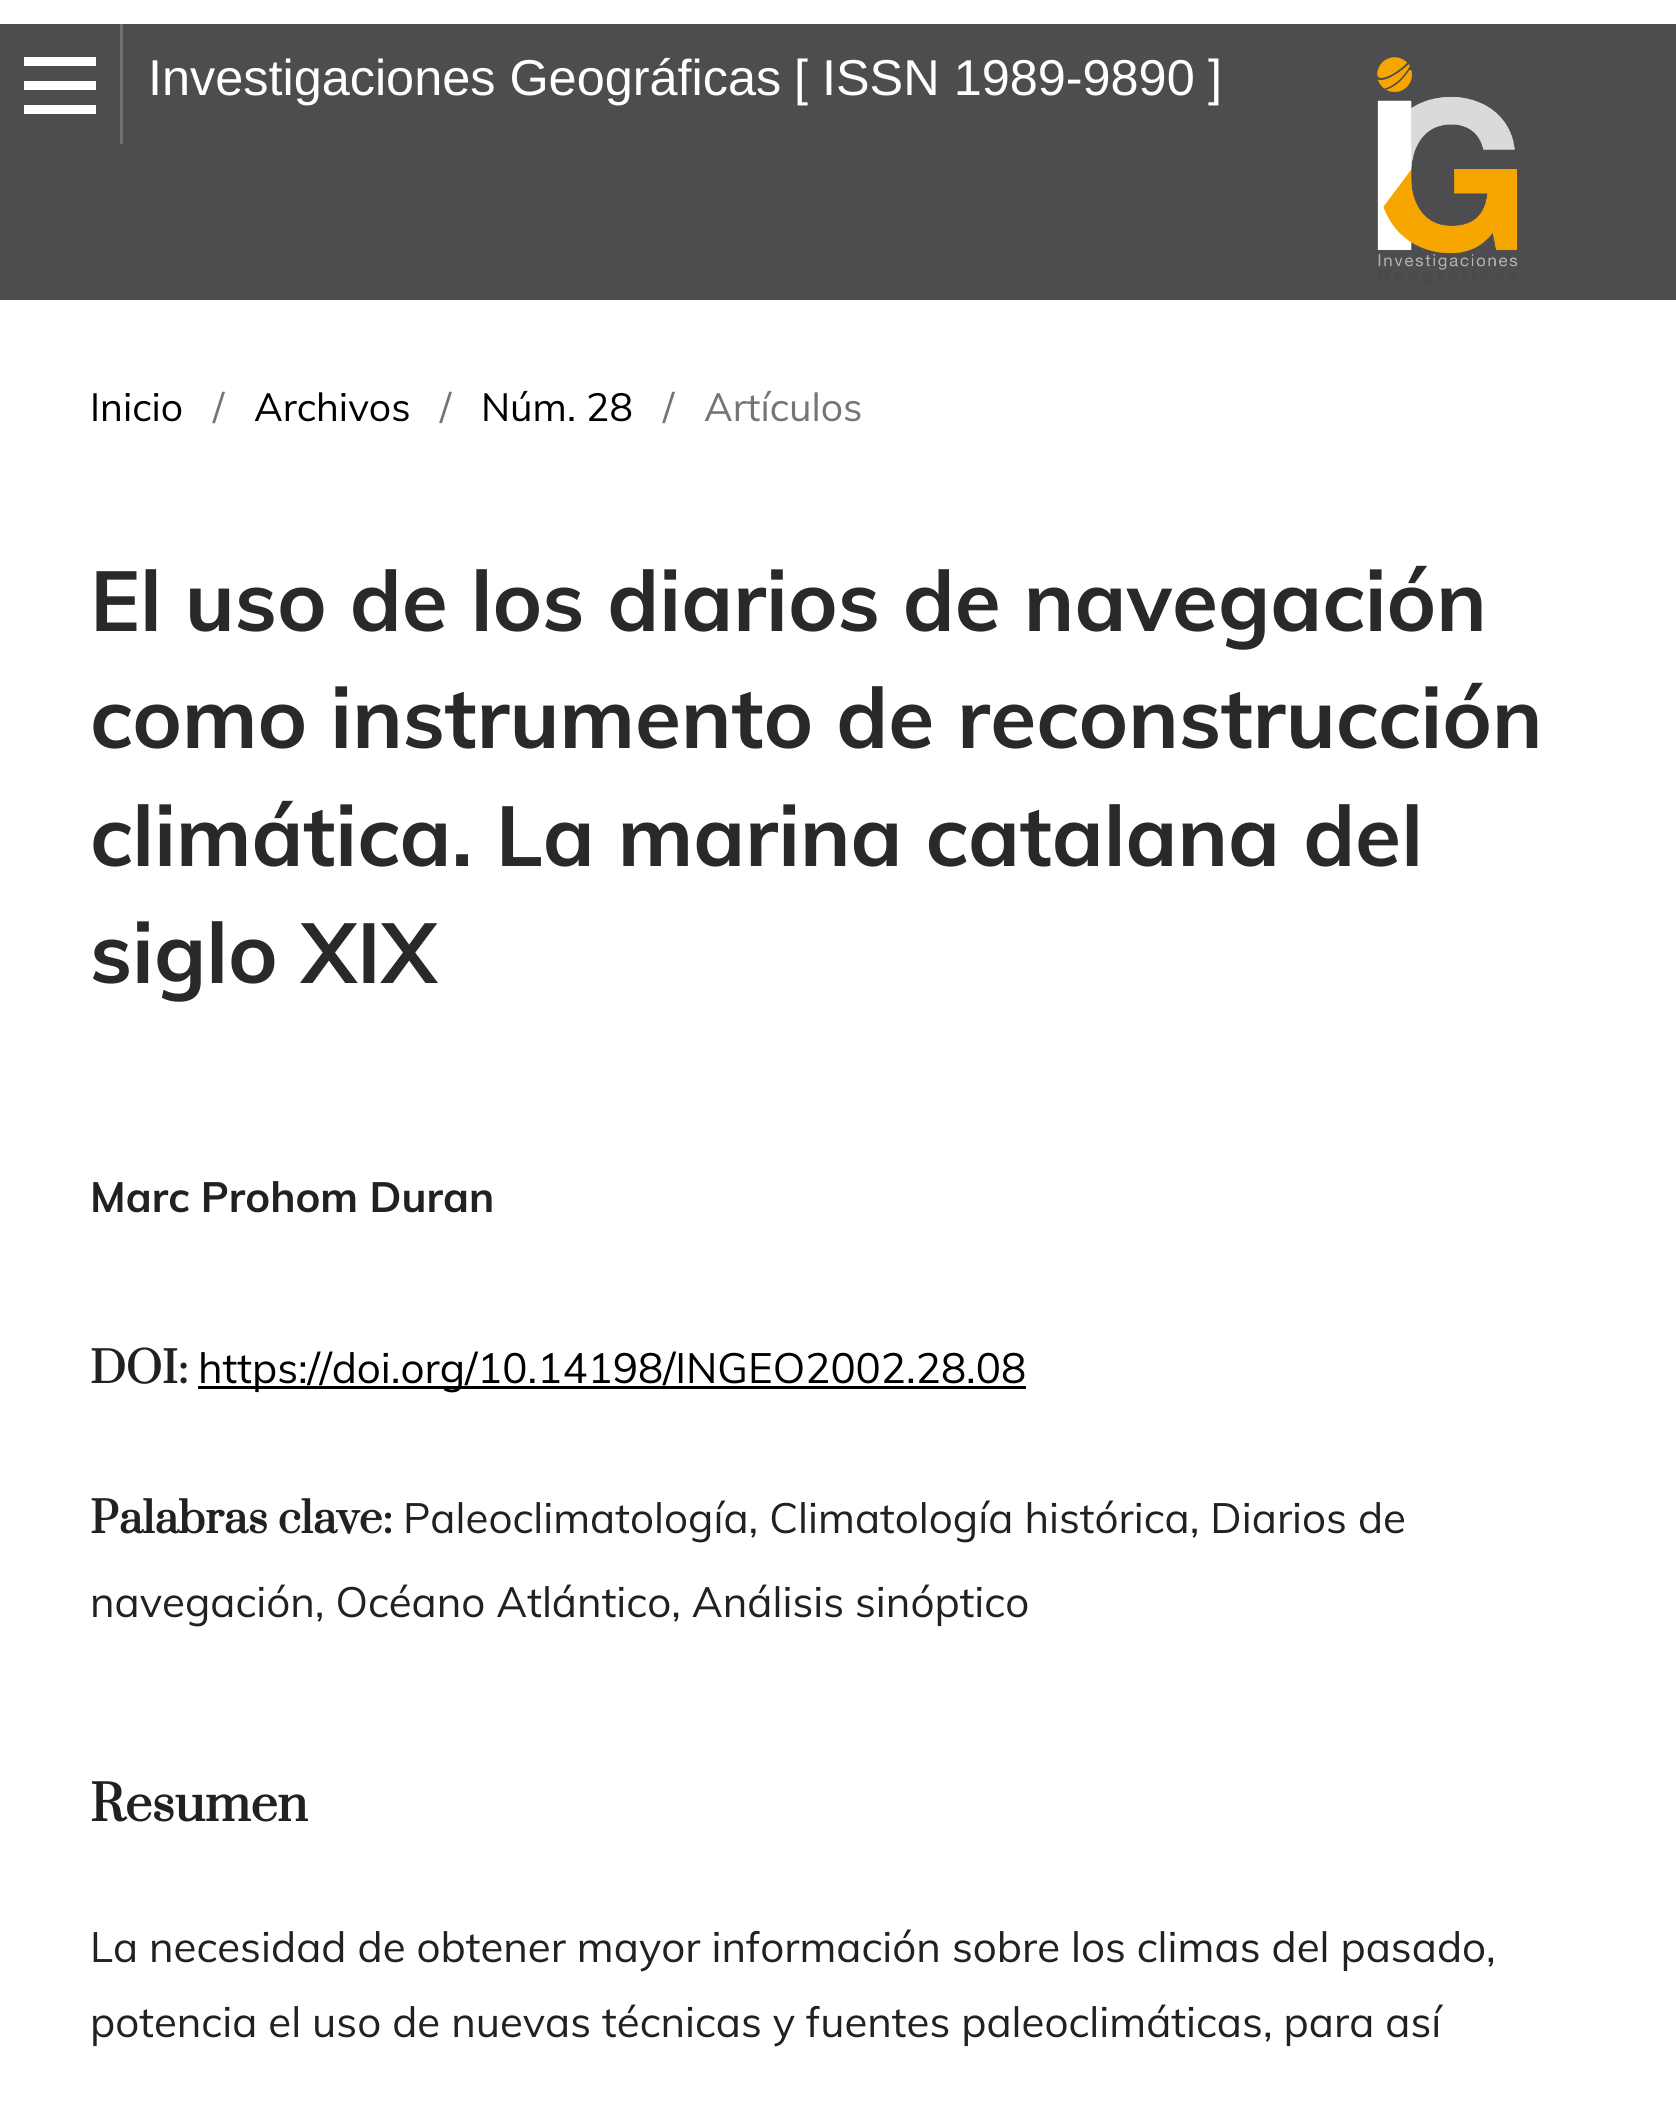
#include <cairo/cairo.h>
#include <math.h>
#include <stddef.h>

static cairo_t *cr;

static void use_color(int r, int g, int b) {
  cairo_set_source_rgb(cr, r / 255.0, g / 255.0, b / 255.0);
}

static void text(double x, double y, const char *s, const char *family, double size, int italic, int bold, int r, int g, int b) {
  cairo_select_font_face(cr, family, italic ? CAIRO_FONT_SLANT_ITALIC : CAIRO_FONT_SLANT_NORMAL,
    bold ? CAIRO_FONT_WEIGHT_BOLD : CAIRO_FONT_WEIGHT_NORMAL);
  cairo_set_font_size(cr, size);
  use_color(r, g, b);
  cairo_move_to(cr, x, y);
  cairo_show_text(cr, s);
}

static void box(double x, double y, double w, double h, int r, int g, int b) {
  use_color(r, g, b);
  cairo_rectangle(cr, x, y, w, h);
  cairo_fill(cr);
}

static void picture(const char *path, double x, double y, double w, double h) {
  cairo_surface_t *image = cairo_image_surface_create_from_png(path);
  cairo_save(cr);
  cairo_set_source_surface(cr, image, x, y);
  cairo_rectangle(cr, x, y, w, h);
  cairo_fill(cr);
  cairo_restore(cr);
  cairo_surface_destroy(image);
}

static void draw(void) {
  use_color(255, 255, 255);
  cairo_paint(cr);
  box(0, 24, 1676, 276, 77, 77, 79);
  box(120, 24, 3, 120, 113, 113, 114);
  box(24, 105, 72, 9, 255, 255, 255);
  box(24, 57, 72, 9, 255, 255, 255);
  box(24, 81, 72, 9, 255, 255, 255);
  picture("img_01.png", 1377, 57, 141, 227);
  box(198, 1386, 828, 3, 0, 0, 0);
  text(148, 95, "Investigaciones Geográficas", "Liberation Sans", 50.4, 0, 0, 255, 255, 255);
  text(794, 95, "[ ISSN 1989-9890", "Liberation Sans", 50.4, 0, 0, 255, 255, 255);
  text(1208, 95, "]", "Liberation Sans", 50.4, 0, 0, 255, 255, 255);
  text(90, 421, "Inicio", "Muli", 39, 0, 0, 0, 0, 0);
  text(213, 421, "/", "Muli", 39, 0, 0, 117, 117, 117);
  text(254, 421, "Archivos", "Muli", 39, 0, 0, 0, 0, 0);
  text(440, 421, "/", "Muli", 39, 0, 0, 117, 117, 117);
  text(481, 421, "Núm. 28", "Muli", 39, 0, 0, 0, 0, 0);
  text(663, 421, "/", "Muli", 39, 0, 0, 117, 117, 117);
  text(704, 421, "Artículos", "Muli", 39, 0, 0, 117, 117, 117);
  text(90, 631, "El uso de los diarios de navegación", "Muli", 84, 0, 1, 41, 41, 41);
  text(90, 748, "como instrumento de reconstrucción", "Muli", 84, 0, 1, 41, 41, 41);
  text(90, 866, "climática. La marina catalana del", "Muli", 84, 0, 1, 41, 41, 41);
  text(90, 983, "siglo XIX", "Muli", 84, 0, 1, 41, 41, 41);
  text(90, 1212, "Marc Prohom Duran", "Muli", 42, 0, 1, 33, 33, 33);
  text(90, 1383, "DOI:", "Prata", 42, 0, 1, 33, 33, 33);
  text(198, 1383, "https://doi.org/10.14198/INGEO2002.28.08", "Muli", 42, 0, 0, 0, 0, 0);
  text(90, 1533, "Palabras clave:", "Prata", 42, 0, 1, 33, 33, 33);
  text(403, 1533, "Paleoclimatología, Climatología histórica, Diarios de", "Muli", 42, 0, 0, 33, 33, 33);
  text(90, 1617, "navegación, Océano Atlántico, Análisis sinóptico", "Muli", 42, 0, 0, 33, 33, 33);
  text(90, 1821, "Resumen", "Prata", 48, 0, 1, 33, 33, 33);
  text(90, 1962, "La necesidad de obtener mayor información sobre los climas del pasado,", "Muli", 42, 0, 0, 33, 33, 33);
  text(90, 2037, "potencia el uso de nuevas técnicas y fuentes paleoclimáticas, para así", "Muli", 42, 0, 0, 33, 33, 33);
}

int main(void) {
  cairo_surface_t *surface = cairo_image_surface_create(CAIRO_FORMAT_RGB24, 1676, 2101);
  cr = cairo_create(surface);
  cairo_font_options_t *options = cairo_font_options_create();
  cairo_font_options_set_hint_metrics(options, CAIRO_HINT_METRICS_OFF);
  cairo_font_options_set_hint_style(options, CAIRO_HINT_STYLE_NONE);
  cairo_set_font_options(cr, options);
  cairo_set_miter_limit(cr, 4);
  draw();
  cairo_surface_write_to_png(surface, "out.png");
  cairo_font_options_destroy(options);
  cairo_destroy(cr);
  cairo_surface_destroy(surface);
  return 0;
}
